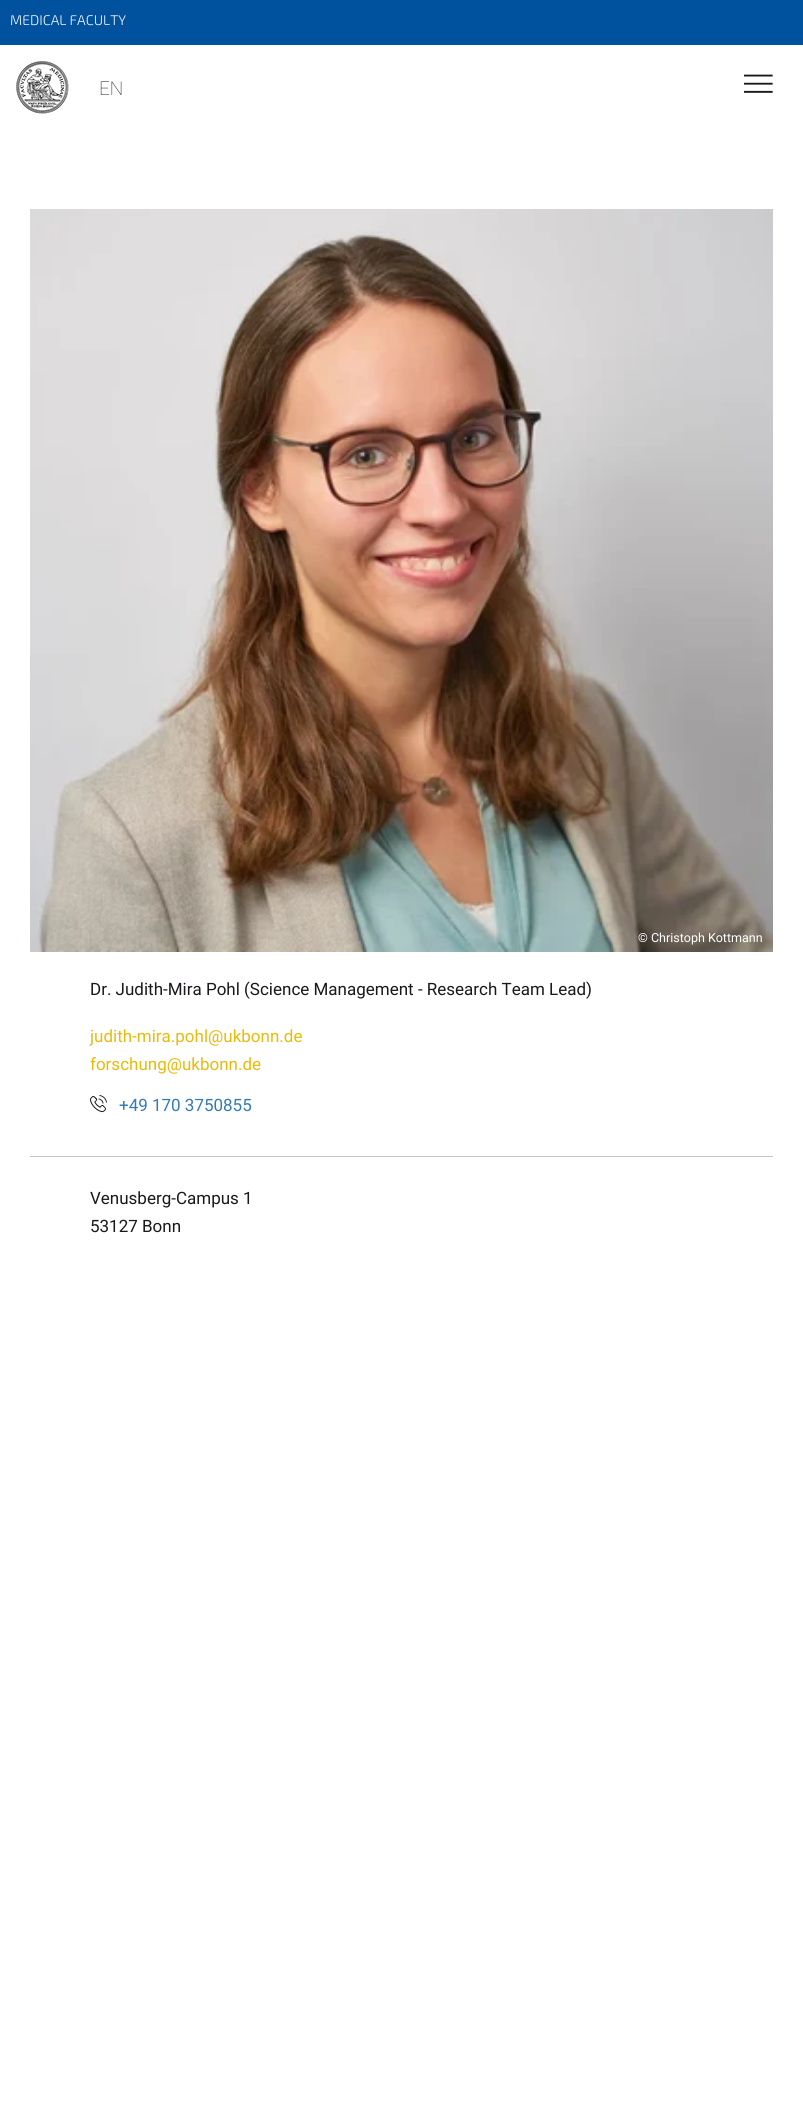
#include <cairo/cairo.h>
#include <math.h>
#include <stddef.h>

static cairo_t *cr;

static void use_color(int r, int g, int b) {
  cairo_set_source_rgb(cr, r / 255.0, g / 255.0, b / 255.0);
}

static void text(double x, double y, const char *s, const char *family, double size, int italic, int bold, int r, int g, int b) {
  cairo_select_font_face(cr, family, italic ? CAIRO_FONT_SLANT_ITALIC : CAIRO_FONT_SLANT_NORMAL,
    bold ? CAIRO_FONT_WEIGHT_BOLD : CAIRO_FONT_WEIGHT_NORMAL);
  cairo_set_font_size(cr, size);
  use_color(r, g, b);
  cairo_move_to(cr, x, y);
  cairo_show_text(cr, s);
}

static void box(double x, double y, double w, double h, int r, int g, int b) {
  use_color(r, g, b);
  cairo_rectangle(cr, x, y, w, h);
  cairo_fill(cr);
}

static void picture(const char *path, double x, double y, double w, double h) {
  cairo_surface_t *image = cairo_image_surface_create_from_png(path);
  cairo_save(cr);
  cairo_set_source_surface(cr, image, x, y);
  cairo_rectangle(cr, x, y, w, h);
  cairo_fill(cr);
  cairo_restore(cr);
  cairo_surface_destroy(image);
}

static void draw(void) {
  use_color(255, 255, 255);
  cairo_paint(cr);
  box(0, 0, 803, 45, 0, 82, 159);
  picture("img_01.png", 16, 61, 53, 53);
  picture("img_02.png", 744, 74, 29, 19);
  picture("img_03.png", 30, 209, 743, 743);
  picture("img_04.png", 90, 1095, 17, 18);
  box(30, 1156, 743, 1, 198, 198, 200);
  text(10, 25, "MEDICAL FACULTY", "Exo 2 Light", 14, 0, 0, 246, 247, 249);
  text(99, 95, "EN", "Roboto Thin", 19, 0, 0, 26, 24, 27);
  text(638, 942, "© Christoph Kottmann", "Roboto", 12.5, 0, 0, 255, 255, 255);
  text(90, 995, "Dr. Judith-Mira Pohl (Science Management - Research Team Lead)", "Roboto", 17, 0, 0, 26, 24, 27);
  text(90, 1042, "judith-mira.pohl@ukbonn.de", "Roboto", 17, 0, 0, 234, 185, 12);
  text(90, 1070, "forschung@ukbonn.de", "Roboto", 17, 0, 0, 234, 185, 12);
  text(119, 1111, "+49 170 3750855", "Roboto", 17, 0, 0, 51, 122, 183);
  text(90, 1204, "Venusberg-Campus 1", "Roboto", 17, 0, 0, 26, 24, 27);
  text(90, 1232, "53127 Bonn", "Roboto", 17, 0, 0, 26, 24, 27);
}

int main(void) {
  cairo_surface_t *surface = cairo_image_surface_create(CAIRO_FORMAT_RGB24, 803, 2121);
  cr = cairo_create(surface);
  cairo_font_options_t *options = cairo_font_options_create();
  cairo_font_options_set_hint_metrics(options, CAIRO_HINT_METRICS_OFF);
  cairo_font_options_set_hint_style(options, CAIRO_HINT_STYLE_NONE);
  cairo_set_font_options(cr, options);
  cairo_set_miter_limit(cr, 4);
  draw();
  cairo_surface_write_to_png(surface, "out.png");
  cairo_font_options_destroy(options);
  cairo_destroy(cr);
  cairo_surface_destroy(surface);
  return 0;
}
